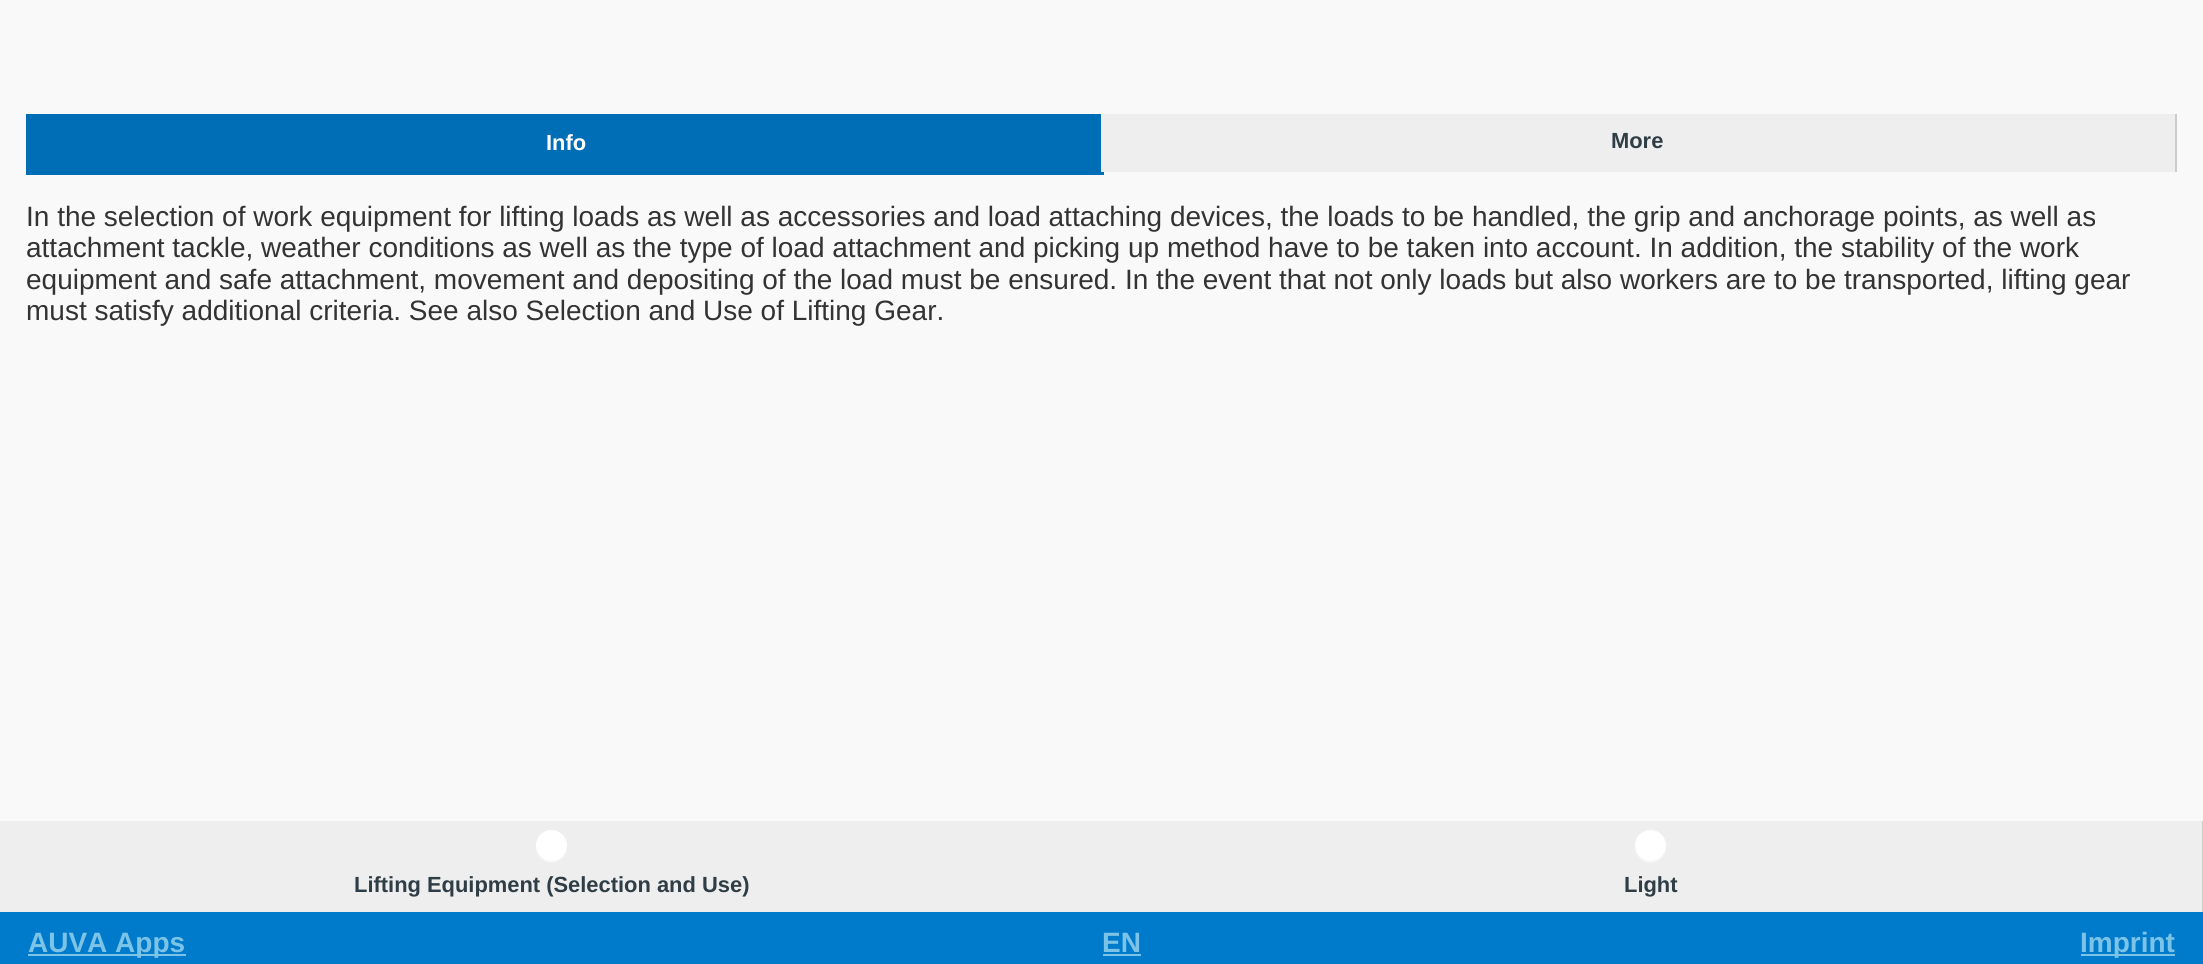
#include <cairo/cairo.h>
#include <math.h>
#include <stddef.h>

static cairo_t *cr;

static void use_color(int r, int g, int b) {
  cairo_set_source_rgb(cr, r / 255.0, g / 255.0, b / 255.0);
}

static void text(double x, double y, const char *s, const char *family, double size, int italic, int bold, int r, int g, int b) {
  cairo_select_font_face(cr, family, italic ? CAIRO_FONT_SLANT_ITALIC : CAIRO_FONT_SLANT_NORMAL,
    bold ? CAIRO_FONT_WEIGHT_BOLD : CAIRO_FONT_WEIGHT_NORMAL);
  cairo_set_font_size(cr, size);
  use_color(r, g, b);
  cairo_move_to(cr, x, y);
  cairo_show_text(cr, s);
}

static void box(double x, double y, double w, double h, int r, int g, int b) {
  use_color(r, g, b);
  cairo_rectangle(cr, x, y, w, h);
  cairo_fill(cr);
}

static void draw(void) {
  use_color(249, 249, 249);
  cairo_paint(cr);
  box(28, 116, 1076, 57, 0, 110, 183);
  box(26, 114, 1078, 2, 0, 110, 183);
  box(26, 173, 1078, 2, 0, 110, 183);
  box(26, 114, 2, 61, 0, 110, 183);
  box(1101, 114, 1074, 58, 238, 238, 238);
  box(2175, 114, 2, 58, 204, 204, 204);
  box(0, 821, 2202, 91, 238, 238, 238);
  use_color(245, 245, 245);
  cairo_new_path(cr);
  cairo_move_to(cr, 536, 850);
  cairo_curve_to(cr, 539, 869, 568, 866.5, 567, 846);
  cairo_curve_to(cr, 566.5, 863.5, 541, 866.5, 536, 850);
  cairo_close_path(cr);
  cairo_fill(cr);
  use_color(255, 255, 255);
  cairo_arc(cr, 551.5, 845.5, 15.5, 0, 2 * M_PI);
  cairo_fill(cr);
  box(2202, 821, 1, 94, 204, 204, 204);
  use_color(245, 245, 245);
  cairo_new_path(cr);
  cairo_move_to(cr, 1635, 850);
  cairo_curve_to(cr, 1638, 869, 1667, 866.5, 1666, 846);
  cairo_curve_to(cr, 1665.5, 863.5, 1640, 866.5, 1635, 850);
  cairo_close_path(cr);
  cairo_fill(cr);
  use_color(255, 255, 255);
  cairo_arc(cr, 1650.5, 845.5, 15.5, 0, 2 * M_PI);
  cairo_fill(cr);
  box(0, 912, 2203, 52, 0, 122, 203);
  box(28, 954, 158, 2, 124, 196, 231);
  box(1103, 954, 38, 2, 124, 196, 231);
  box(2081, 954, 94, 2, 124, 196, 231);
  text(546, 150, "Info", "Liberation Sans", 21.9, 0, 1, 255, 255, 255);
  text(1611, 148, "More", "Liberation Sans", 21.9, 0, 1, 47, 62, 70);
  text(26, 226, "In the selection of work equipment for lifting loads as well as accessories and load attaching devices, the loads to be handled, the grip and anchorage points, as well as", "Liberation Sans", 28, 0, 0, 51, 51, 51);
  text(26, 257, "attachment tackle, weather conditions as well as the type of load attachment and picking up method have to be taken into account. In addition, the stability of the work", "Liberation Sans", 28, 0, 0, 51, 51, 51);
  text(26, 289, "equipment and safe attachment, movement and depositing of the load must be ensured. In the event that not only loads but also workers are to be transported, lifting gear", "Liberation Sans", 28, 0, 0, 51, 51, 51);
  text(26, 320, "must satisfy additional criteria. See also Selection and Use of Lifting Gear.", "Liberation Sans", 28, 0, 0, 51, 51, 51);
  text(354, 892, "Lifting Equipment (Selection and Use)", "Liberation Sans", 21.9, 0, 1, 47, 62, 70);
  text(1624, 892, "Light", "Liberation Sans", 21.9, 0, 1, 47, 62, 70);
  text(28, 952, "AUVA Apps", "Liberation Sans", 28, 0, 1, 124, 196, 231);
  text(1102, 952, "EN", "Liberation Sans", 28, 0, 1, 124, 196, 231);
  text(2080, 952, "Imprint", "Liberation Sans", 28, 0, 1, 124, 196, 231);
}

int main(void) {
  cairo_surface_t *surface = cairo_image_surface_create(CAIRO_FORMAT_RGB24, 2203, 964);
  cr = cairo_create(surface);
  cairo_font_options_t *options = cairo_font_options_create();
  cairo_font_options_set_hint_metrics(options, CAIRO_HINT_METRICS_OFF);
  cairo_font_options_set_hint_style(options, CAIRO_HINT_STYLE_NONE);
  cairo_set_font_options(cr, options);
  cairo_set_miter_limit(cr, 4);
  draw();
  cairo_surface_write_to_png(surface, "out.png");
  cairo_font_options_destroy(options);
  cairo_destroy(cr);
  cairo_surface_destroy(surface);
  return 0;
}
